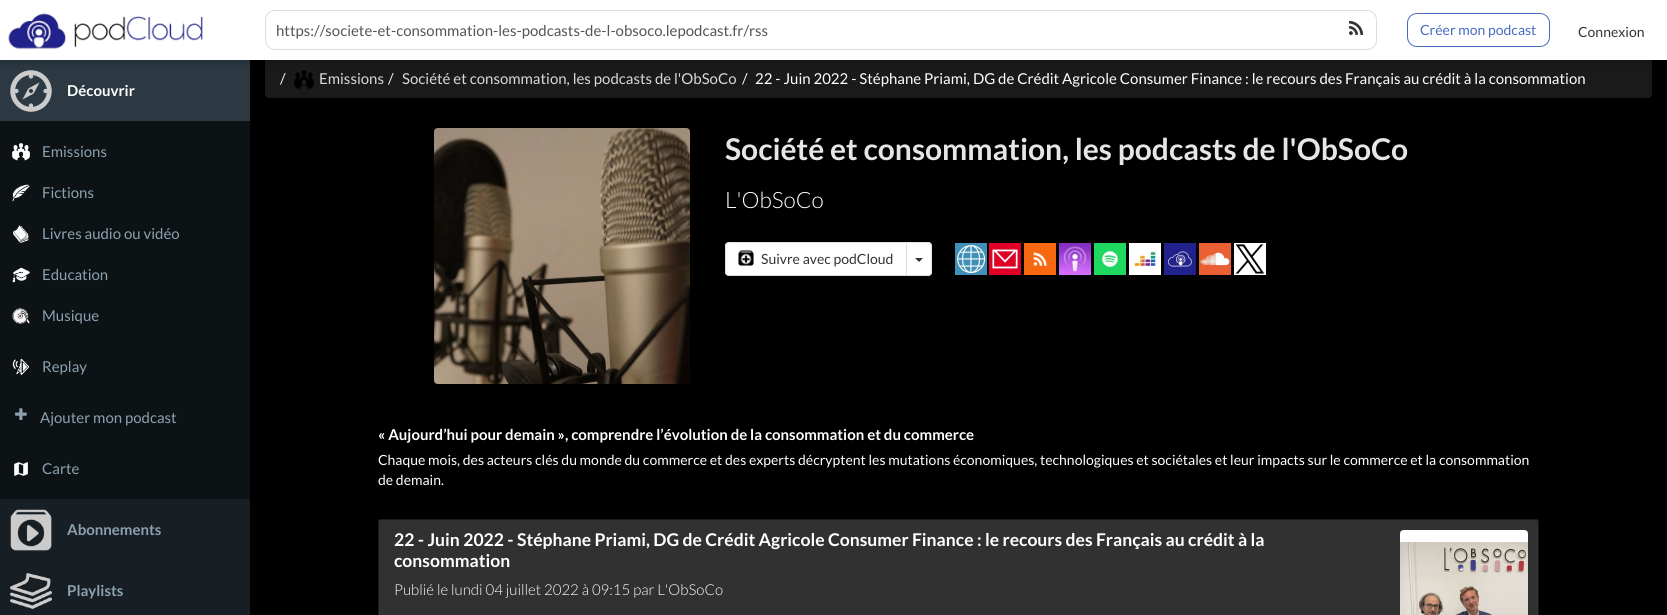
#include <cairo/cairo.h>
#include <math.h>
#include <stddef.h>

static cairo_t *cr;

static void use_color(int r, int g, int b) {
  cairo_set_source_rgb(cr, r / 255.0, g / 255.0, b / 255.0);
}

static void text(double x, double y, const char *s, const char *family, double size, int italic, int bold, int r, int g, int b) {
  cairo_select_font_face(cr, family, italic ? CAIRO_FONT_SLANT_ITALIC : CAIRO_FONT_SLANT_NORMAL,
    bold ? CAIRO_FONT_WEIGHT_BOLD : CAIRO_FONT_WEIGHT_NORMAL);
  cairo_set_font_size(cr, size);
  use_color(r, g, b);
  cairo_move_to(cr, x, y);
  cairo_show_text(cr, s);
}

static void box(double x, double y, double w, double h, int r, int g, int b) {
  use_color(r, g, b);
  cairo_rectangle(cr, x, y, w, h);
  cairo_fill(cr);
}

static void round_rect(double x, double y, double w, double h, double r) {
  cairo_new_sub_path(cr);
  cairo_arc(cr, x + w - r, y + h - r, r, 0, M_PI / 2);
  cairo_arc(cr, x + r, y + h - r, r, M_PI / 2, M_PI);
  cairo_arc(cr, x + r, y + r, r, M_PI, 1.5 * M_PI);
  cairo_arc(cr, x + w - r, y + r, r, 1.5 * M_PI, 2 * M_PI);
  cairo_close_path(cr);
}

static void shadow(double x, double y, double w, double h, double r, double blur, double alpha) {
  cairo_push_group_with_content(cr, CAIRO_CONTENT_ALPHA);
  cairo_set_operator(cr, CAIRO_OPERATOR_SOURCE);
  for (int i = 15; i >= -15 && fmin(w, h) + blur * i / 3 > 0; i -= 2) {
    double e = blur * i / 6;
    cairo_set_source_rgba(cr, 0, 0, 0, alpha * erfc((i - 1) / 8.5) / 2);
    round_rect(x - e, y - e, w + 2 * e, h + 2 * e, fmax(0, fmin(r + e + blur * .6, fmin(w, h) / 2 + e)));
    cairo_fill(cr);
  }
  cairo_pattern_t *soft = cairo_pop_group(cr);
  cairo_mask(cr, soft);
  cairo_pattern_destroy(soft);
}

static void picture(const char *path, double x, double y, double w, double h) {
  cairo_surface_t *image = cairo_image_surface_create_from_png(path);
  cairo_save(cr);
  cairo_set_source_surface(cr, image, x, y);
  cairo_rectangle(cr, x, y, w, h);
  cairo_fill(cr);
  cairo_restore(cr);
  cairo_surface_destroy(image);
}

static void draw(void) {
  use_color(24, 31, 36);
  cairo_paint(cr);
  box(0, 60, 250, 61, 44, 57, 66);
  picture("img_03.png", 10, 70, 42, 42);
  box(250, 60, 1417, 555, 0, 0, 0);
  use_color(26, 26, 26);
  cairo_new_path(cr);
  cairo_move_to(cr, 265, 60);
  cairo_line_to(cr, 1652, 60);
  cairo_line_to(cr, 1652, 94);
  cairo_curve_to(cr, 1652, 96, 1650, 98, 1648, 98);
  cairo_line_to(cr, 269, 98);
  cairo_curve_to(cr, 267, 98, 265, 96, 265, 94);
  cairo_close_path(cr);
  cairo_fill(cr);
  picture("img_14.png", 294, 70, 20, 19);
  use_color(0, 0, 0);
  shadow(0, 0, 1667, 60, 0, 5, 0.35);
  box(0, 0, 1667, 60, 255, 255, 255);
  picture("img_01.png", 8, 13, 195, 37);
  round_rect(265.5, 10.5, 1111, 39, 9.5);
  use_color(221, 221, 221);
  cairo_set_line_width(cr, 1);
  cairo_stroke(cr);
  picture("img_02.png", 1349, 20, 15, 15);
  round_rect(1407.5, 13.5, 142, 33, 9.5);
  use_color(70, 107, 191);
  cairo_stroke(cr);
  box(0, 121, 250, 378, 13, 18, 21);
  picture("img_04.png", 12, 143, 18, 18);
  picture("img_05.png", 12, 184, 18, 18);
  picture("img_06.png", 13, 225, 16, 18);
  picture("img_07.png", 12, 267, 18, 16);
  picture("img_08.png", 12, 308, 18, 16);
  picture("img_09.png", 12, 358, 18, 17);
  picture("img_10.png", 15, 408, 12, 12);
  picture("img_11.png", 14, 462, 14, 14);
  picture("img_12.png", 10, 509, 42, 42);
  picture("img_13.png", 10, 573, 42, 36);
  picture("img_15.png", 434, 128, 256, 256);
  use_color(255, 255, 255);
  cairo_new_path(cr);
  cairo_move_to(cr, 729, 242);
  cairo_line_to(cr, 907, 242);
  cairo_line_to(cr, 907, 276);
  cairo_line_to(cr, 729, 276);
  cairo_curve_to(cr, 727, 276, 725, 274, 725, 272);
  cairo_line_to(cr, 725, 246);
  cairo_curve_to(cr, 725, 244, 727, 242, 729, 242);
  cairo_close_path(cr);
  cairo_fill(cr);
  use_color(219, 226, 231);
  cairo_new_path(cr);
  cairo_move_to(cr, 729, 242);
  cairo_line_to(cr, 726, 243);
  cairo_line_to(cr, 727, 244);
  cairo_line_to(cr, 729, 243);
  cairo_line_to(cr, 906, 243);
  cairo_line_to(cr, 907, 242);
  cairo_close_path(cr);
  cairo_fill(cr);
  use_color(213, 221, 227);
  cairo_new_path(cr);
  cairo_move_to(cr, 907, 276);
  cairo_line_to(cr, 906, 275);
  cairo_line_to(cr, 729, 275);
  cairo_line_to(cr, 727, 274);
  cairo_line_to(cr, 726, 275);
  cairo_line_to(cr, 729, 276);
  cairo_close_path(cr);
  cairo_fill(cr);
  use_color(219, 226, 231);
  cairo_new_path(cr);
  cairo_move_to(cr, 725, 246);
  cairo_line_to(cr, 725, 272);
  cairo_curve_to(cr, 725, 273, 725.5, 274, 726, 275);
  cairo_line_to(cr, 727, 274);
  cairo_curve_to(cr, 726, 274, 726, 273, 726, 272);
  cairo_line_to(cr, 726, 246);
  cairo_curve_to(cr, 726, 245, 726, 244, 727, 244);
  cairo_line_to(cr, 726, 243);
  cairo_curve_to(cr, 725.5, 244, 725, 245, 725, 246);
  cairo_close_path(cr);
  cairo_fill(cr);
  picture("img_16.png", 738, 250, 16, 16);
  use_color(90, 90, 90);
  shadow(906, 243, 26, 34, 4, 0.5, 0.1);
  use_color(255, 255, 255);
  cairo_new_path(cr);
  cairo_move_to(cr, 906, 242);
  cairo_line_to(cr, 928, 242);
  cairo_curve_to(cr, 930, 242, 932, 244, 932, 246);
  cairo_line_to(cr, 932, 272);
  cairo_curve_to(cr, 932, 274, 930, 276, 928, 276);
  cairo_line_to(cr, 906, 276);
  cairo_close_path(cr);
  cairo_fill(cr);
  use_color(219, 226, 231);
  cairo_new_path(cr);
  cairo_move_to(cr, 906, 242);
  cairo_line_to(cr, 907, 243);
  cairo_line_to(cr, 928, 243);
  cairo_curve_to(cr, 929, 243, 929.5, 243.5, 930, 244);
  cairo_line_to(cr, 931, 243);
  cairo_curve_to(cr, 930, 242.5, 929, 242, 928, 242);
  cairo_close_path(cr);
  cairo_fill(cr);
  cairo_new_path(cr);
  cairo_move_to(cr, 932, 272);
  cairo_line_to(cr, 932, 246);
  cairo_curve_to(cr, 932, 245, 931.5, 244, 931, 243);
  cairo_line_to(cr, 930, 244);
  cairo_curve_to(cr, 930.5, 244.5, 931, 245, 931, 246);
  cairo_line_to(cr, 931, 272);
  cairo_curve_to(cr, 931, 273, 930.5, 273.5, 930, 274);
  cairo_line_to(cr, 931, 275);
  cairo_curve_to(cr, 931.5, 274, 932, 273, 932, 272);
  cairo_close_path(cr);
  cairo_fill(cr);
  use_color(213, 221, 227);
  cairo_new_path(cr);
  cairo_move_to(cr, 928, 276);
  cairo_curve_to(cr, 929, 276, 930, 275.5, 931, 275);
  cairo_line_to(cr, 930, 274);
  cairo_curve_to(cr, 929.5, 274.5, 929, 275, 928, 275);
  cairo_line_to(cr, 907, 275);
  cairo_line_to(cr, 906, 276);
  cairo_close_path(cr);
  cairo_fill(cr);
  use_color(219, 226, 231);
  cairo_new_path(cr);
  cairo_move_to(cr, 907, 243);
  cairo_line_to(cr, 906, 242);
  cairo_line_to(cr, 906, 276);
  cairo_line_to(cr, 907, 275);
  cairo_close_path(cr);
  cairo_fill(cr);
  use_color(51, 51, 51);
  cairo_new_path(cr);
  cairo_move_to(cr, 915, 258);
  cairo_line_to(cr, 923, 258);
  cairo_line_to(cr, 919, 262);
  cairo_close_path(cr);
  cairo_fill(cr);
  picture("img_17.png", 955, 243, 32, 32);
  picture("img_18.png", 989, 243, 32, 32);
  picture("img_19.png", 1024, 243, 32, 32);
  picture("img_20.png", 1059, 243, 32, 32);
  picture("img_21.png", 1094, 243, 32, 32);
  picture("img_22.png", 1129, 243, 32, 32);
  picture("img_23.png", 1164, 243, 32, 32);
  picture("img_24.png", 1199, 243, 32, 32);
  picture("img_25.png", 1234, 243, 32, 32);
  use_color(26, 26, 26);
  cairo_new_path(cr);
  cairo_move_to(cr, 380, 519);
  cairo_line_to(cr, 1537, 519);
  cairo_curve_to(cr, 1538, 519, 1539, 520, 1539, 521);
  cairo_line_to(cr, 1539, 615);
  cairo_line_to(cr, 378, 615);
  cairo_line_to(cr, 378, 521);
  cairo_curve_to(cr, 378, 520, 379, 519, 380, 519);
  cairo_close_path(cr);
  cairo_fill(cr);
  use_color(49, 49, 49);
  cairo_new_path(cr);
  cairo_move_to(cr, 381, 520);
  cairo_line_to(cr, 1536, 520);
  cairo_curve_to(cr, 1537, 520, 1538, 521, 1538, 522);
  cairo_line_to(cr, 1538, 615);
  cairo_line_to(cr, 379, 615);
  cairo_line_to(cr, 379, 522);
  cairo_curve_to(cr, 379, 521, 380, 520, 381, 520);
  cairo_close_path(cr);
  cairo_fill(cr);
  picture("img_26.png", 1400, 530, 128, 85);
  text(276, 36, "https://societe-et-consommation-les-podcasts-de-l-obsoco.lepodcast.fr/rss", "Lato", 15, 0, 0, 85, 85, 85);
  text(1420, 35, "Créer mon podcast", "Lato", 14, 0, 0, 70, 107, 191);
  text(1578, 37, "Connexion", "Lato", 14, 0, 0, 51, 51, 51);
  text(67, 96, "Découvrir", "Lato", 15, 0, 1, 255, 255, 255);
  text(42, 157, "Emissions", "Lato", 15, 0, 0, 140, 161, 175);
  text(42, 198, "Fictions", "Lato", 15, 0, 0, 140, 161, 175);
  text(42, 239, "Livres audio ou vidéo", "Lato", 15, 0, 0, 140, 161, 175);
  text(42, 280, "Education", "Lato", 15, 0, 0, 140, 161, 175);
  text(42, 321, "Musique", "Lato", 15, 0, 0, 140, 161, 175);
  text(42, 372, "Replay", "Lato", 15, 0, 0, 140, 161, 175);
  text(40, 423, "Ajouter mon podcast", "Lato", 15, 0, 0, 140, 161, 175);
  text(42, 474, "Carte", "Lato", 15, 0, 0, 140, 161, 175);
  text(67, 535, "Abonnements", "Lato", 15, 0, 1, 140, 161, 175);
  text(67, 596, "Playlists", "Lato", 15, 0, 1, 140, 161, 175);
  text(280, 84, "/", "Lato", 15, 0, 0, 242, 242, 242);
  text(319, 84, "Emissions", "Lato", 15, 0, 0, 217, 217, 217);
  text(388, 84, "/", "Lato", 15, 0, 0, 242, 242, 242);
  text(402, 84, "Société et consommation, les podcasts de l'ObSoCo", "Lato", 15, 0, 0, 217, 217, 217);
  text(742, 84, "/", "Lato", 15, 0, 0, 242, 242, 242);
  text(755, 84, "22 - Juin 2022 - Stéphane Priami, DG de Crédit Agricole Consumer Finance : le recours des Français au crédit à la consommation", "Lato", 15, 0, 0, 255, 255, 255);
  text(725, 160, "Société et consommation, les podcasts de l'ObSoCo", "Lato", 30, 0, 1, 230, 230, 230);
  text(725, 208, "L'ObSoCo", "Lato Light", 22.5, 0, 0, 255, 255, 255);
  text(761, 264, "Suivre avec podCloud", "Lato", 14, 0, 0, 51, 51, 51);
  text(378, 440, "« Aujourd’hui pour demain », comprendre l’évolution de la consommation et du commerce", "Lato", 15, 0, 1, 255, 255, 255);
  text(378, 465, "Chaque mois, des acteurs clés du monde du commerce et des experts décryptent les mutations économiques, technologiques et sociétales et leur impacts sur le commerce et la consommation", "Lato", 14, 0, 0, 255, 255, 255);
  text(378, 485, "de demain.", "Lato", 14, 0, 0, 255, 255, 255);
  text(394, 546, "22 - Juin 2022 - Stéphane Priami, DG de Crédit Agricole Consumer Finance : le recours des Français au crédit à la", "Lato", 17.55, 0, 1, 255, 255, 255);
  text(394, 567, "consommation", "Lato", 17.55, 0, 1, 255, 255, 255);
  text(394, 595, "Publié le lundi 04 juillet 2022 à 09:15 par L'ObSoCo", "Lato Light", 15, 0, 0, 255, 255, 255);
}

int main(void) {
  cairo_surface_t *surface = cairo_image_surface_create(CAIRO_FORMAT_RGB24, 1667, 615);
  cr = cairo_create(surface);
  cairo_font_options_t *options = cairo_font_options_create();
  cairo_font_options_set_hint_metrics(options, CAIRO_HINT_METRICS_OFF);
  cairo_font_options_set_hint_style(options, CAIRO_HINT_STYLE_NONE);
  cairo_set_font_options(cr, options);
  cairo_set_miter_limit(cr, 4);
  draw();
  cairo_surface_write_to_png(surface, "out.png");
  cairo_font_options_destroy(options);
  cairo_destroy(cr);
  cairo_surface_destroy(surface);
  return 0;
}
